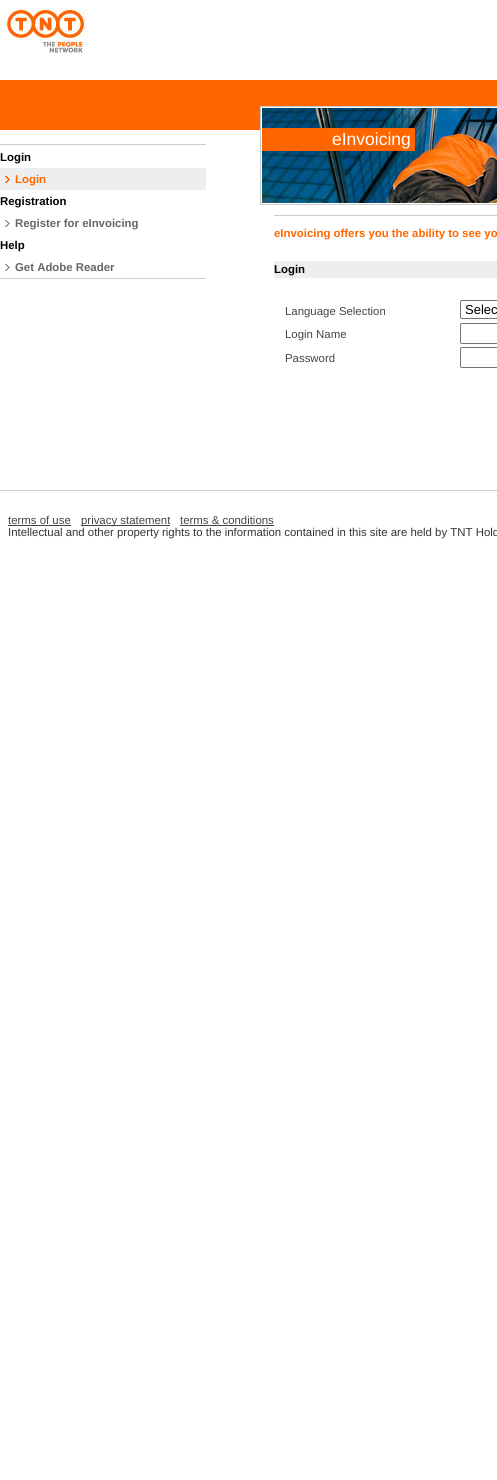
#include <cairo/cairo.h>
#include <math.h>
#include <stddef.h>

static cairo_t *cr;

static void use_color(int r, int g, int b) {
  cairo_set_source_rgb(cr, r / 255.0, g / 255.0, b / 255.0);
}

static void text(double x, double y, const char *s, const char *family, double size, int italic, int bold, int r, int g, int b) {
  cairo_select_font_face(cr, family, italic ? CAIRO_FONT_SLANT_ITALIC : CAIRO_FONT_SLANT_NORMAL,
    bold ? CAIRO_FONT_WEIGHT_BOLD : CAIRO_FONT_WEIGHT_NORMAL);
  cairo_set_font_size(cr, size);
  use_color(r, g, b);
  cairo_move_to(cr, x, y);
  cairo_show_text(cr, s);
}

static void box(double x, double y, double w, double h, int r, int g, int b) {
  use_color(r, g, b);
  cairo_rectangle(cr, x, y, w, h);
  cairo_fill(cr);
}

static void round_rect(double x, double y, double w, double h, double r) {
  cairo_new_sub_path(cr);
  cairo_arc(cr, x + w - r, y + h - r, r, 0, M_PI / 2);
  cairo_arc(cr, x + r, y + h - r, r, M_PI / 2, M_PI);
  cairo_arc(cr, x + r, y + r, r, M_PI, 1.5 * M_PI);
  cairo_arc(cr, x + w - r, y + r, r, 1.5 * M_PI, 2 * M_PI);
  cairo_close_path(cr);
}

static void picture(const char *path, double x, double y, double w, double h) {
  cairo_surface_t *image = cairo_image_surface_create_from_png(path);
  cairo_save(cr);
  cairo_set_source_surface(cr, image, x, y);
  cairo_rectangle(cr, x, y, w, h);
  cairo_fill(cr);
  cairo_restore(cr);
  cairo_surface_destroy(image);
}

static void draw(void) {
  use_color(255, 255, 255);
  cairo_paint(cr);
  box(0, 80, 497, 50, 255, 102, 0);
  picture("img_01.png", 0, 8, 88, 48);
  box(0, 144, 206, 1, 204, 204, 204);
  box(0, 278, 206, 1, 204, 204, 204);
  box(0, 168, 206, 22, 238, 238, 238);
  picture("img_02.png", 5, 176, 5, 7);
  picture("img_03.png", 5, 220, 5, 7);
  picture("img_03.png", 5, 264, 5, 7);
  cairo_rectangle(cr, 260.5, 106.5, 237, 98);
  use_color(204, 204, 204);
  cairo_set_line_width(cr, 1);
  cairo_stroke(cr);
  picture("img_04.png", 262, 108, 235, 95);
  cairo_rectangle(cr, 261.5, 107.5, 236, 96);
  use_color(255, 255, 255);
  cairo_stroke(cr);
  box(262, 128, 153, 23, 255, 102, 0);
  box(274, 215, 223, 1, 204, 204, 204);
  box(274, 261, 223, 17, 238, 238, 238);
  round_rect(460.5, 300.5, 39, 18, 1.5);
  use_color(118, 118, 118);
  cairo_stroke(cr);
  round_rect(460.5, 323.5, 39, 20, 1.5);
  cairo_stroke(cr);
  round_rect(460.5, 347.5, 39, 20, 1.5);
  cairo_stroke(cr);
  box(0, 490, 497, 1, 204, 204, 204);
  box(8, 525, 63, 1, 68, 68, 68);
  box(81, 525, 89, 1, 68, 68, 68);
  box(180, 525, 94, 1, 68, 68, 68);
  text(0, 161, "Login", "Liberation Sans", 11.4, 0, 1, 0, 0, 0);
  text(15, 183, "Login", "Liberation Sans", 11.4, 0, 1, 255, 102, 0);
  text(0, 205, "Registration", "Liberation Sans", 11.4, 0, 1, 0, 0, 0);
  text(15, 227, "Register for eInvoicing", "Liberation Sans", 11.4, 0, 1, 102, 102, 102);
  text(0, 249, "Help", "Liberation Sans", 11.4, 0, 1, 0, 0, 0);
  text(15, 271, "Get Adobe Reader", "Liberation Sans", 11.4, 0, 1, 102, 102, 102);
  text(332, 145, "eInvoicing", "Liberation Sans", 17.5, 0, 0, 255, 255, 255);
  text(274, 237, "eInvoicing offers you the ability to see yo", "Liberation Sans", 11.4, 0, 1, 255, 102, 0);
  text(274, 273, "Login", "Liberation Sans", 11.4, 0, 1, 0, 0, 0);
  text(285, 315, "Language Selection", "Liberation Sans", 11.4, 0, 0, 68, 68, 68);
  text(465, 314, "Selec", "Liberation Sans", 13, 0, 0, 0, 0, 0);
  text(285, 338, "Login Name", "Liberation Sans", 11.4, 0, 0, 68, 68, 68);
  text(285, 362, "Password", "Liberation Sans", 11.4, 0, 0, 68, 68, 68);
  text(8, 524, "terms of use", "Liberation Sans", 11.4, 0, 0, 68, 68, 68);
  text(81, 524, "privacy statement", "Liberation Sans", 11.4, 0, 0, 68, 68, 68);
  text(180, 524, "terms & conditions", "Liberation Sans", 11.4, 0, 0, 68, 68, 68);
  text(8, 536, "Intellectual and other property rights to the information contained in this site are held by TNT Hold", "Liberation Sans", 11.4, 0, 0, 51, 51, 51);
}

int main(void) {
  cairo_surface_t *surface = cairo_image_surface_create(CAIRO_FORMAT_RGB24, 497, 1480);
  cr = cairo_create(surface);
  cairo_font_options_t *options = cairo_font_options_create();
  cairo_font_options_set_hint_metrics(options, CAIRO_HINT_METRICS_OFF);
  cairo_font_options_set_hint_style(options, CAIRO_HINT_STYLE_NONE);
  cairo_set_font_options(cr, options);
  cairo_set_miter_limit(cr, 4);
  draw();
  cairo_surface_write_to_png(surface, "out.png");
  cairo_font_options_destroy(options);
  cairo_destroy(cr);
  cairo_surface_destroy(surface);
  return 0;
}
